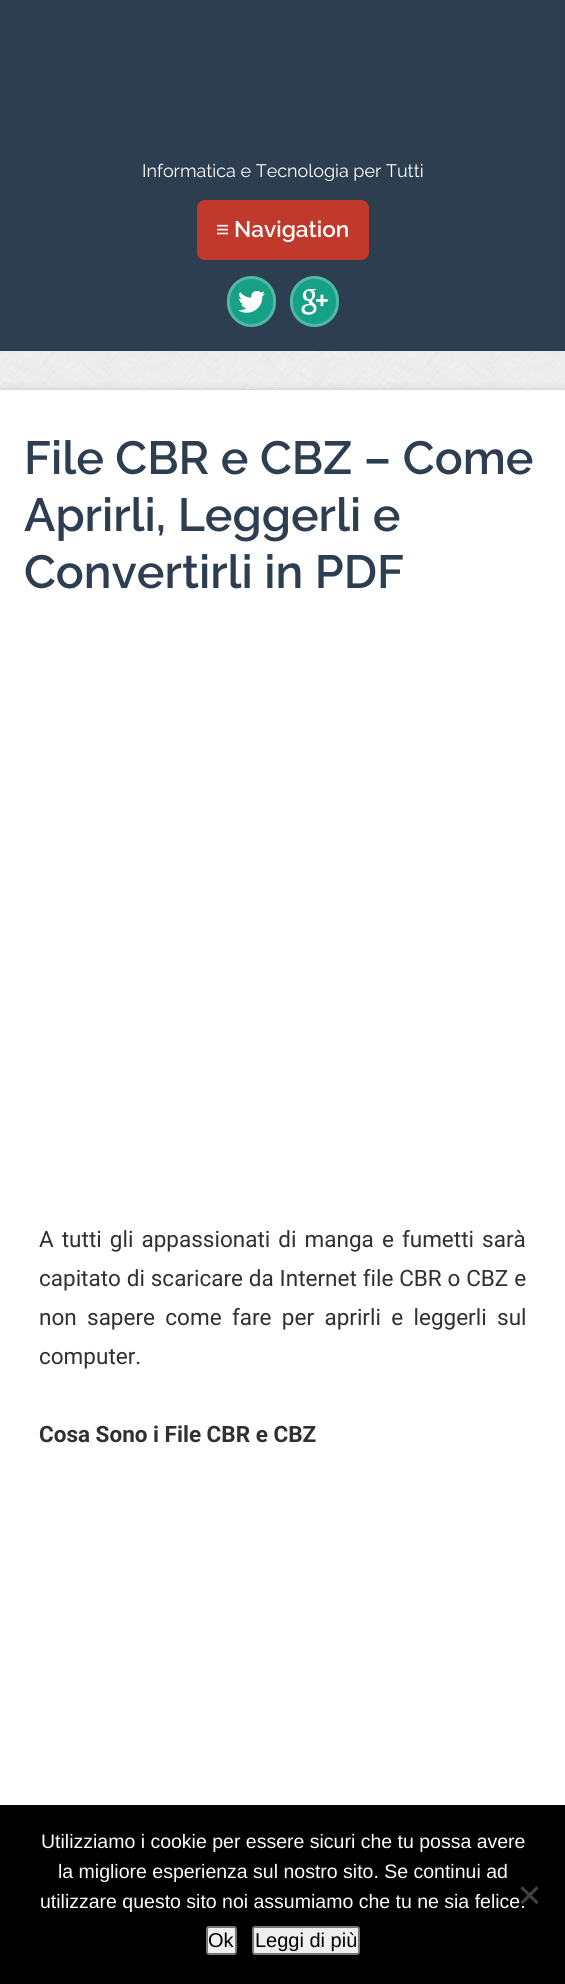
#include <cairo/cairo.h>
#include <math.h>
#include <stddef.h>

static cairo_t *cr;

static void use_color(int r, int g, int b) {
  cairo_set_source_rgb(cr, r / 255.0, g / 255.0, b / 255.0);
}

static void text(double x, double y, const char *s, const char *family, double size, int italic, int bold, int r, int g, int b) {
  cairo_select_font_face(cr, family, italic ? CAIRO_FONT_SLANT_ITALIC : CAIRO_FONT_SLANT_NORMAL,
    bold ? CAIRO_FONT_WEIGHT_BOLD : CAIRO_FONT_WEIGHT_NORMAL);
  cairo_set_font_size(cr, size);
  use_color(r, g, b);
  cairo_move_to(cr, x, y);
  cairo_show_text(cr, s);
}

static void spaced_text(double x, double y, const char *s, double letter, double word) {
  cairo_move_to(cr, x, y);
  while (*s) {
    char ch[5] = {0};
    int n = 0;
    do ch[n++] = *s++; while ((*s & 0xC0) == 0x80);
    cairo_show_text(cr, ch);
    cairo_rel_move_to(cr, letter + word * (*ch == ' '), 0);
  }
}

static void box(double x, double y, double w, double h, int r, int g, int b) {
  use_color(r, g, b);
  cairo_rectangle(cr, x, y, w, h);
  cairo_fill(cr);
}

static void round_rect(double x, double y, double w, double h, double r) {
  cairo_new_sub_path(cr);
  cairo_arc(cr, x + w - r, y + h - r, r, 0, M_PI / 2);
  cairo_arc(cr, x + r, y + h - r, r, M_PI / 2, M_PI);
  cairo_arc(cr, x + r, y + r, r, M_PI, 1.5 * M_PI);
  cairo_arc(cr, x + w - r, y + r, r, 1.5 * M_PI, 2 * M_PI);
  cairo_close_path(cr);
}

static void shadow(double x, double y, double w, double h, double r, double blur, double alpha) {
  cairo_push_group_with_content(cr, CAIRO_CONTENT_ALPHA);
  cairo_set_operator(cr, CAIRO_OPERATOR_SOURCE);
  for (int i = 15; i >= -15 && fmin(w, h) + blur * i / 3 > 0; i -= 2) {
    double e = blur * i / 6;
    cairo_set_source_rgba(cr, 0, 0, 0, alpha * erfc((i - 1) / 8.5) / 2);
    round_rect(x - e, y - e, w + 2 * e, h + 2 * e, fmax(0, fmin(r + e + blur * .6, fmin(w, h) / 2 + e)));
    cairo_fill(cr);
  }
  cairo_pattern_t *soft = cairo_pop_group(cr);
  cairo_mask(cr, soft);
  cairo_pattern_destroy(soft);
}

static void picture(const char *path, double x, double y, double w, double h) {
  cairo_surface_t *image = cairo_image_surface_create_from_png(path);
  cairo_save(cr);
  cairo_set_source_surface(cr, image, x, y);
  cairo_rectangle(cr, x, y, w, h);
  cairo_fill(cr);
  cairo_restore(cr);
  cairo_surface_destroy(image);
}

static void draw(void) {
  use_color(44, 62, 80);
  cairo_paint(cr);
  use_color(192, 57, 43);
  round_rect(197, 200, 172, 60, 8);
  cairo_fill(cr);
  use_color(22, 160, 133);
  round_rect(227, 276, 49, 51, 24.5);
  cairo_fill(cr);
  round_rect(228.5, 277.5, 46, 48, 23);
  cairo_set_source_rgba(cr, 1, 1, 1, 0.25);
  cairo_set_line_width(cr, 3);
  cairo_stroke(cr);
  use_color(22, 160, 133);
  round_rect(290, 276, 49, 51, 24.5);
  cairo_fill(cr);
  round_rect(291.5, 277.5, 46, 48, 23);
  cairo_set_source_rgba(cr, 1, 1, 1, 0.25);
  cairo_stroke(cr);
  picture("img_01.png", 238, 291, 27, 22);
  picture("img_02.png", 301, 289, 27, 26);
  picture("img_03.png", 0, 351, 565, 39);
  use_color(149, 165, 166);
  shadow(3, 393, 560, 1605, 0, 4.5, 1);
  box(0, 390, 565, 1415, 255, 255, 255);
  box(0, 1805, 565, 179, 0, 0, 0);
  use_color(239, 239, 239);
  round_rect(207, 1927, 29, 27, 2);
  cairo_fill_preserve(cr);
  use_color(118, 118, 118);
  cairo_set_line_width(cr, 2);
  cairo_stroke(cr);
  use_color(239, 239, 239);
  round_rect(253, 1927, 106, 27, 2);
  cairo_fill_preserve(cr);
  use_color(118, 118, 118);
  cairo_stroke(cr);
  text(142, 177, "Informatica e Tecnologia per Tutti", "Raleway", 18, 0, 0, 255, 255, 255);
  text(216, 237, "≡", "Liberation Sans", 22.5, 0, 1, 255, 255, 255);
  text(234, 237, "Navigation", "Raleway SemiBold", 22.5, 0, 0, 255, 255, 255);
  text(24, 474, "File CBR e CBZ – Come", "Raleway SemiBold", 46.5, 0, 0, 44, 62, 80);
  text(24, 531, "Aprirli, Leggerli e", "Raleway SemiBold", 46.5, 0, 0, 44, 62, 80);
  text(24, 588, "Convertirli in PDF", "Raleway SemiBold", 46.5, 0, 0, 44, 62, 80);
  cairo_select_font_face(cr, "Roboto", CAIRO_FONT_SLANT_NORMAL, CAIRO_FONT_WEIGHT_NORMAL);
  cairo_set_font_size(cr, 22.5);
  use_color(48, 48, 48);
  spaced_text(39, 1247, "A tutti gli appassionati di manga e fumetti sarà", 0, 2.5);
  spaced_text(39, 1286, "capitato di scaricare da Internet file CBR o CBZ e", 0, 0.25);
  spaced_text(39, 1325, "non sapere come fare per aprirli e leggerli sul", 0, 4.75);
  text(39, 1364, "computer.", "Roboto", 22.5, 0, 0, 48, 48, 48);
  text(39, 1442, "Cosa Sono i File CBR e CBZ", "Roboto", 22.5, 0, 1, 48, 48, 48);
  text(41, 1848, "Utilizziamo i cookie per essere sicuri che tu possa avere", "Liberation Sans", 19.5, 0, 0, 255, 255, 255);
  text(58, 1878, "la migliore esperienza sul nostro sito. Se continui ad", "Liberation Sans", 19.5, 0, 0, 255, 255, 255);
  text(40, 1908, "utilizzare questo sito noi assumiamo che tu ne sia felice.", "Liberation Sans", 19.5, 0, 0, 255, 255, 255);
  use_color(64, 64, 64);
  cairo_new_path(cr);
  cairo_move_to(cr, 536.5, 1886);
  cairo_line_to(cr, 538.5, 1888.5);
  cairo_line_to(cr, 522.5, 1904.5);
  cairo_line_to(cr, 520.5, 1902);
  cairo_close_path(cr);
  cairo_fill(cr);
  cairo_new_path(cr);
  cairo_move_to(cr, 520.5, 1888.5);
  cairo_line_to(cr, 522.5, 1886);
  cairo_line_to(cr, 538.5, 1902);
  cairo_line_to(cr, 536.5, 1904.5);
  cairo_close_path(cr);
  cairo_fill(cr);
  text(208, 1947, "Ok", "Liberation Sans", 20, 0, 0, 0, 0, 0);
  text(255, 1947, "Leggi di più", "Liberation Sans", 20, 0, 0, 0, 0, 0);
}

int main(void) {
  cairo_surface_t *surface = cairo_image_surface_create(CAIRO_FORMAT_RGB24, 565, 1984);
  cr = cairo_create(surface);
  cairo_font_options_t *options = cairo_font_options_create();
  cairo_font_options_set_hint_metrics(options, CAIRO_HINT_METRICS_OFF);
  cairo_font_options_set_hint_style(options, CAIRO_HINT_STYLE_NONE);
  cairo_set_font_options(cr, options);
  cairo_set_miter_limit(cr, 4);
  draw();
  cairo_surface_write_to_png(surface, "out.png");
  cairo_font_options_destroy(options);
  cairo_destroy(cr);
  cairo_surface_destroy(surface);
  return 0;
}
